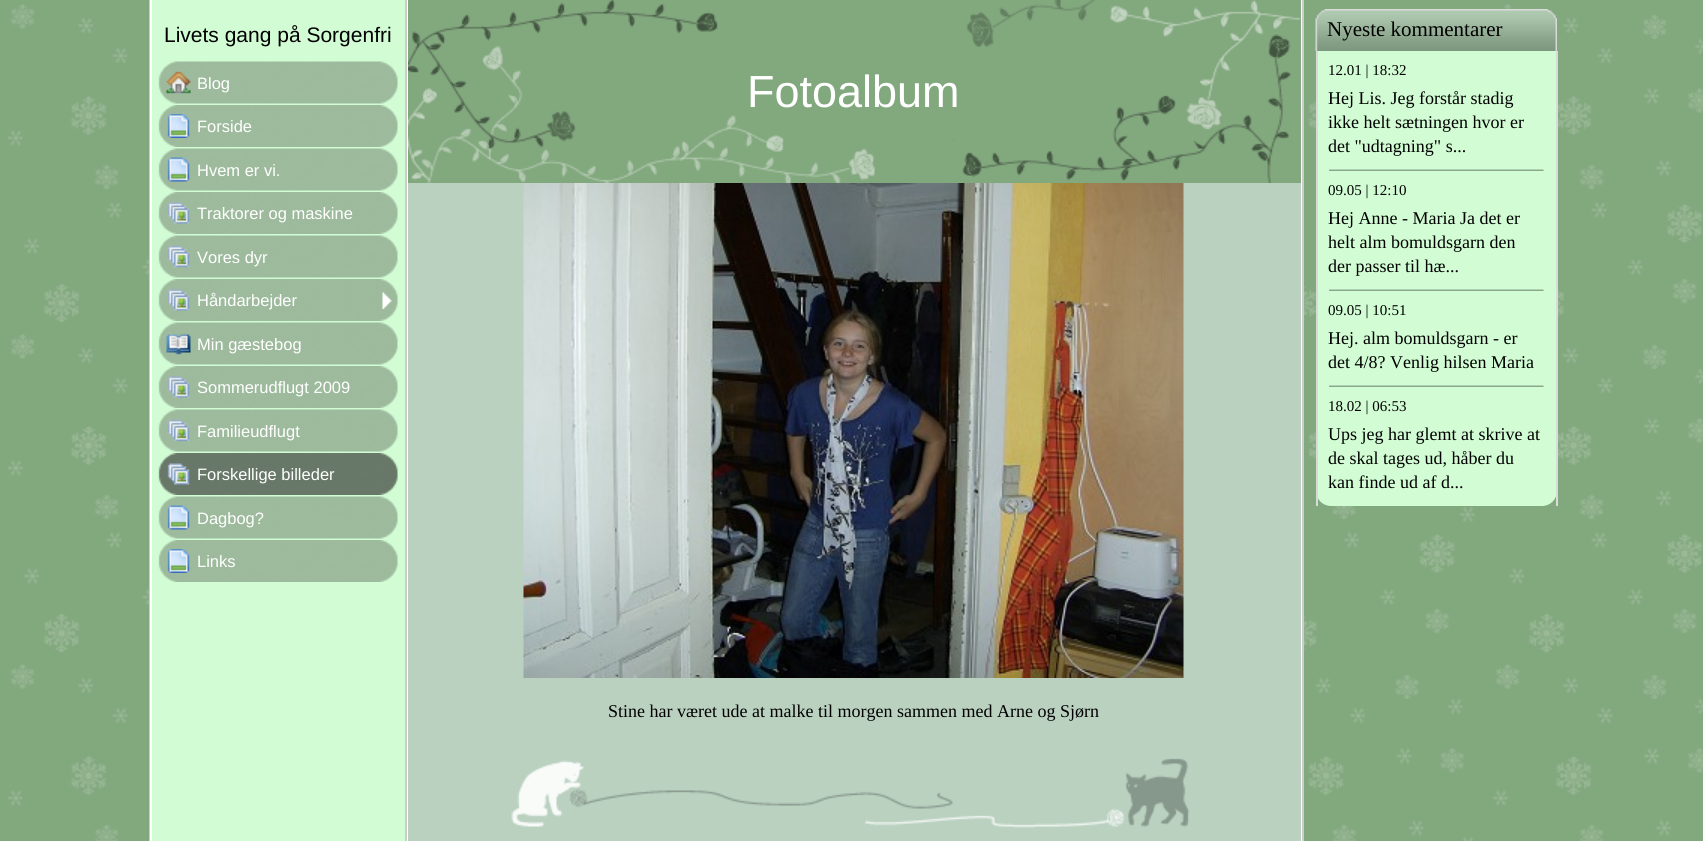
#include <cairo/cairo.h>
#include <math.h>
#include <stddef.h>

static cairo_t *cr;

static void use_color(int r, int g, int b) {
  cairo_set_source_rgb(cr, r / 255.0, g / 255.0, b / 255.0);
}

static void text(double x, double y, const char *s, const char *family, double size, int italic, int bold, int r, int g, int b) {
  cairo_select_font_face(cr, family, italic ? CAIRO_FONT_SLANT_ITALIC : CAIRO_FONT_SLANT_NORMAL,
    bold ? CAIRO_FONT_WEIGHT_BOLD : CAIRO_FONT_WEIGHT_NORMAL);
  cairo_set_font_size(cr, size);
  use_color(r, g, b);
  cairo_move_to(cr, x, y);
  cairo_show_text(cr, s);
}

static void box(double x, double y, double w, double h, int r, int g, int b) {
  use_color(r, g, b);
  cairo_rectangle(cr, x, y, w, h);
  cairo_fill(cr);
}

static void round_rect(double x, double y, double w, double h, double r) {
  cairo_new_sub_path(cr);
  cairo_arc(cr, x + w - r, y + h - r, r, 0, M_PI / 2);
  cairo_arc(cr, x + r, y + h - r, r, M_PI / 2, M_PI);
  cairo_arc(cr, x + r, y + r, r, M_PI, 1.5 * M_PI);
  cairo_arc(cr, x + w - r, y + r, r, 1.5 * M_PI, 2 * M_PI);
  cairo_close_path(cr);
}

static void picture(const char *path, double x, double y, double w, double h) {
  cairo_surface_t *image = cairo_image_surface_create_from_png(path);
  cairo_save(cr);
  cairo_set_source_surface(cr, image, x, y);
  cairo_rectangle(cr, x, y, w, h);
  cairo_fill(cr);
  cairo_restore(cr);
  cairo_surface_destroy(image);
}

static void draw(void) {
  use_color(130, 168, 126);
  cairo_paint(cr);
  picture("img_01.png", 7, 4, 1696, 837);
  box(407, 0, 895, 841, 255, 255, 255);
  box(149, 0, 1, 841, 204, 204, 204);
  box(150, 0, 2, 841, 255, 255, 255);
  box(152, 0, 253, 841, 210, 253, 212);
  picture("img_02.png", 158, 61, 240, 43);
  picture("img_03.png", 166, 71, 25, 23);
  picture("img_04.png", 158, 105, 240, 42);
  picture("img_05.png", 167, 114, 23, 24);
  picture("img_02.png", 158, 148, 240, 43);
  picture("img_06.png", 167, 157, 23, 25);
  picture("img_04.png", 158, 192, 240, 42);
  picture("img_07.png", 167, 202, 23, 22);
  picture("img_02.png", 158, 235, 240, 43);
  picture("img_08.png", 167, 245, 23, 23);
  picture("img_04.png", 158, 279, 240, 42);
  picture("img_07.png", 167, 289, 23, 22);
  picture("img_09.png", 382, 292, 10, 17);
  picture("img_02.png", 158, 322, 240, 43);
  picture("img_10.png", 166, 334, 25, 21);
  picture("img_04.png", 158, 366, 240, 42);
  picture("img_07.png", 167, 376, 23, 22);
  picture("img_02.png", 158, 409, 240, 43);
  picture("img_08.png", 167, 419, 23, 23);
  picture("img_11.png", 158, 453, 240, 42);
  picture("img_12.png", 167, 463, 23, 22);
  picture("img_02.png", 158, 496, 240, 43);
  picture("img_06.png", 167, 505, 23, 25);
  picture("img_04.png", 158, 540, 240, 42);
  picture("img_05.png", 167, 549, 23, 24);
  box(405, 0, 2, 841, 204, 204, 204);
  box(408, 183, 893, 658, 186, 209, 192);
  box(408, 0, 893, 183, 130, 168, 126);
  picture("img_13.png", 408, 0, 893, 183);
  picture("img_14.png", 523, 183, 661, 495);
  picture("img_15.png", 511, 758, 679, 70);
  box(1302, 0, 2, 841, 204, 204, 204);
  use_color(210, 253, 212);
  round_rect(1316, 9, 241, 497, 15);
  cairo_fill(cr);
  picture("img_16.png", 1315, 9, 242, 42);
  box(1556, 51, 2, 455, 218, 218, 218);
  box(1316, 51, 2, 455, 218, 218, 218);
  picture("img_17.png", 1329, 169, 215, 2);
  picture("img_17.png", 1329, 289, 215, 2);
  picture("img_17.png", 1329, 385, 215, 2);
  text(164, 42, "Livets gang på Sorgenfri", "Liberation Sans", 21, 0, 0, 0, 0, 0);
  text(197, 89, "Blog", "Liberation Sans", 16.5, 0, 0, 255, 255, 255);
  text(197, 132, "Forside", "Liberation Sans", 16.5, 0, 0, 255, 255, 255);
  text(197, 176, "Hvem er vi.", "Liberation Sans", 16.5, 0, 0, 255, 255, 255);
  text(197, 219, "Traktorer og maskine", "Liberation Sans", 16.5, 0, 0, 255, 255, 255);
  text(197, 263, "Vores dyr", "Liberation Sans", 16.5, 0, 0, 255, 255, 255);
  text(197, 306, "Håndarbejder", "Liberation Sans", 16.5, 0, 0, 255, 255, 255);
  text(197, 350, "Min gæstebog", "Liberation Sans", 16.5, 0, 0, 255, 255, 255);
  text(197, 393, "Sommerudflugt 2009", "Liberation Sans", 16.5, 0, 0, 255, 255, 255);
  text(197, 437, "Familieudflugt", "Liberation Sans", 16.5, 0, 0, 255, 255, 255);
  text(197, 480, "Forskellige billeder", "Liberation Sans", 16.5, 0, 0, 255, 255, 255);
  text(197, 524, "Dagbog?", "Liberation Sans", 16.5, 0, 0, 255, 255, 255);
  text(197, 567, "Links", "Liberation Sans", 16.5, 0, 0, 255, 255, 255);
  text(747, 107, "Fotoalbum", "Liberation Sans", 45, 0, 0, 255, 255, 255);
  text(608, 717, "Stine har været ude at malke til morgen sammen med Arne og Sjørn", "Liberation Serif", 18, 0, 0, 0, 0, 0);
  text(1327, 36, "Nyeste kommentarer", "Liberation Serif", 21, 0, 0, 0, 0, 0);
  text(1328, 75, "12.01 | 18:32", "Liberation Serif", 15, 0, 0, 0, 0, 0);
  text(1328, 104, "Hej Lis. Jeg forstår stadig", "Liberation Serif", 18, 0, 0, 0, 0, 0);
  text(1328, 128, "ikke helt sætningen hvor er", "Liberation Serif", 18, 0, 0, 0, 0, 0);
  text(1328, 152, "det \"udtagning\" s...", "Liberation Serif", 18, 0, 0, 0, 0, 0);
  text(1328, 195, "09.05 | 12:10", "Liberation Serif", 15, 0, 0, 0, 0, 0);
  text(1328, 224, "Hej Anne - Maria Ja det er", "Liberation Serif", 18, 0, 0, 0, 0, 0);
  text(1328, 248, "helt alm bomuldsgarn den", "Liberation Serif", 18, 0, 0, 0, 0, 0);
  text(1328, 272, "der passer til hæ...", "Liberation Serif", 18, 0, 0, 0, 0, 0);
  text(1328, 315, "09.05 | 10:51", "Liberation Serif", 15, 0, 0, 0, 0, 0);
  text(1328, 344, "Hej. alm bomuldsgarn - er", "Liberation Serif", 18, 0, 0, 0, 0, 0);
  text(1328, 368, "det 4/8? Venlig hilsen Maria", "Liberation Serif", 18, 0, 0, 0, 0, 0);
  text(1328, 411, "18.02 | 06:53", "Liberation Serif", 15, 0, 0, 0, 0, 0);
  text(1328, 440, "Ups jeg har glemt at skrive at", "Liberation Serif", 18, 0, 0, 0, 0, 0);
  text(1328, 464, "de skal tages ud, håber du", "Liberation Serif", 18, 0, 0, 0, 0, 0);
  text(1328, 488, "kan finde ud af d...", "Liberation Serif", 18, 0, 0, 0, 0, 0);
}

int main(void) {
  cairo_surface_t *surface = cairo_image_surface_create(CAIRO_FORMAT_RGB24, 1703, 841);
  cr = cairo_create(surface);
  cairo_font_options_t *options = cairo_font_options_create();
  cairo_font_options_set_hint_metrics(options, CAIRO_HINT_METRICS_OFF);
  cairo_font_options_set_hint_style(options, CAIRO_HINT_STYLE_NONE);
  cairo_set_font_options(cr, options);
  cairo_set_miter_limit(cr, 4);
  draw();
  cairo_surface_write_to_png(surface, "out.png");
  cairo_font_options_destroy(options);
  cairo_destroy(cr);
  cairo_surface_destroy(surface);
  return 0;
}
